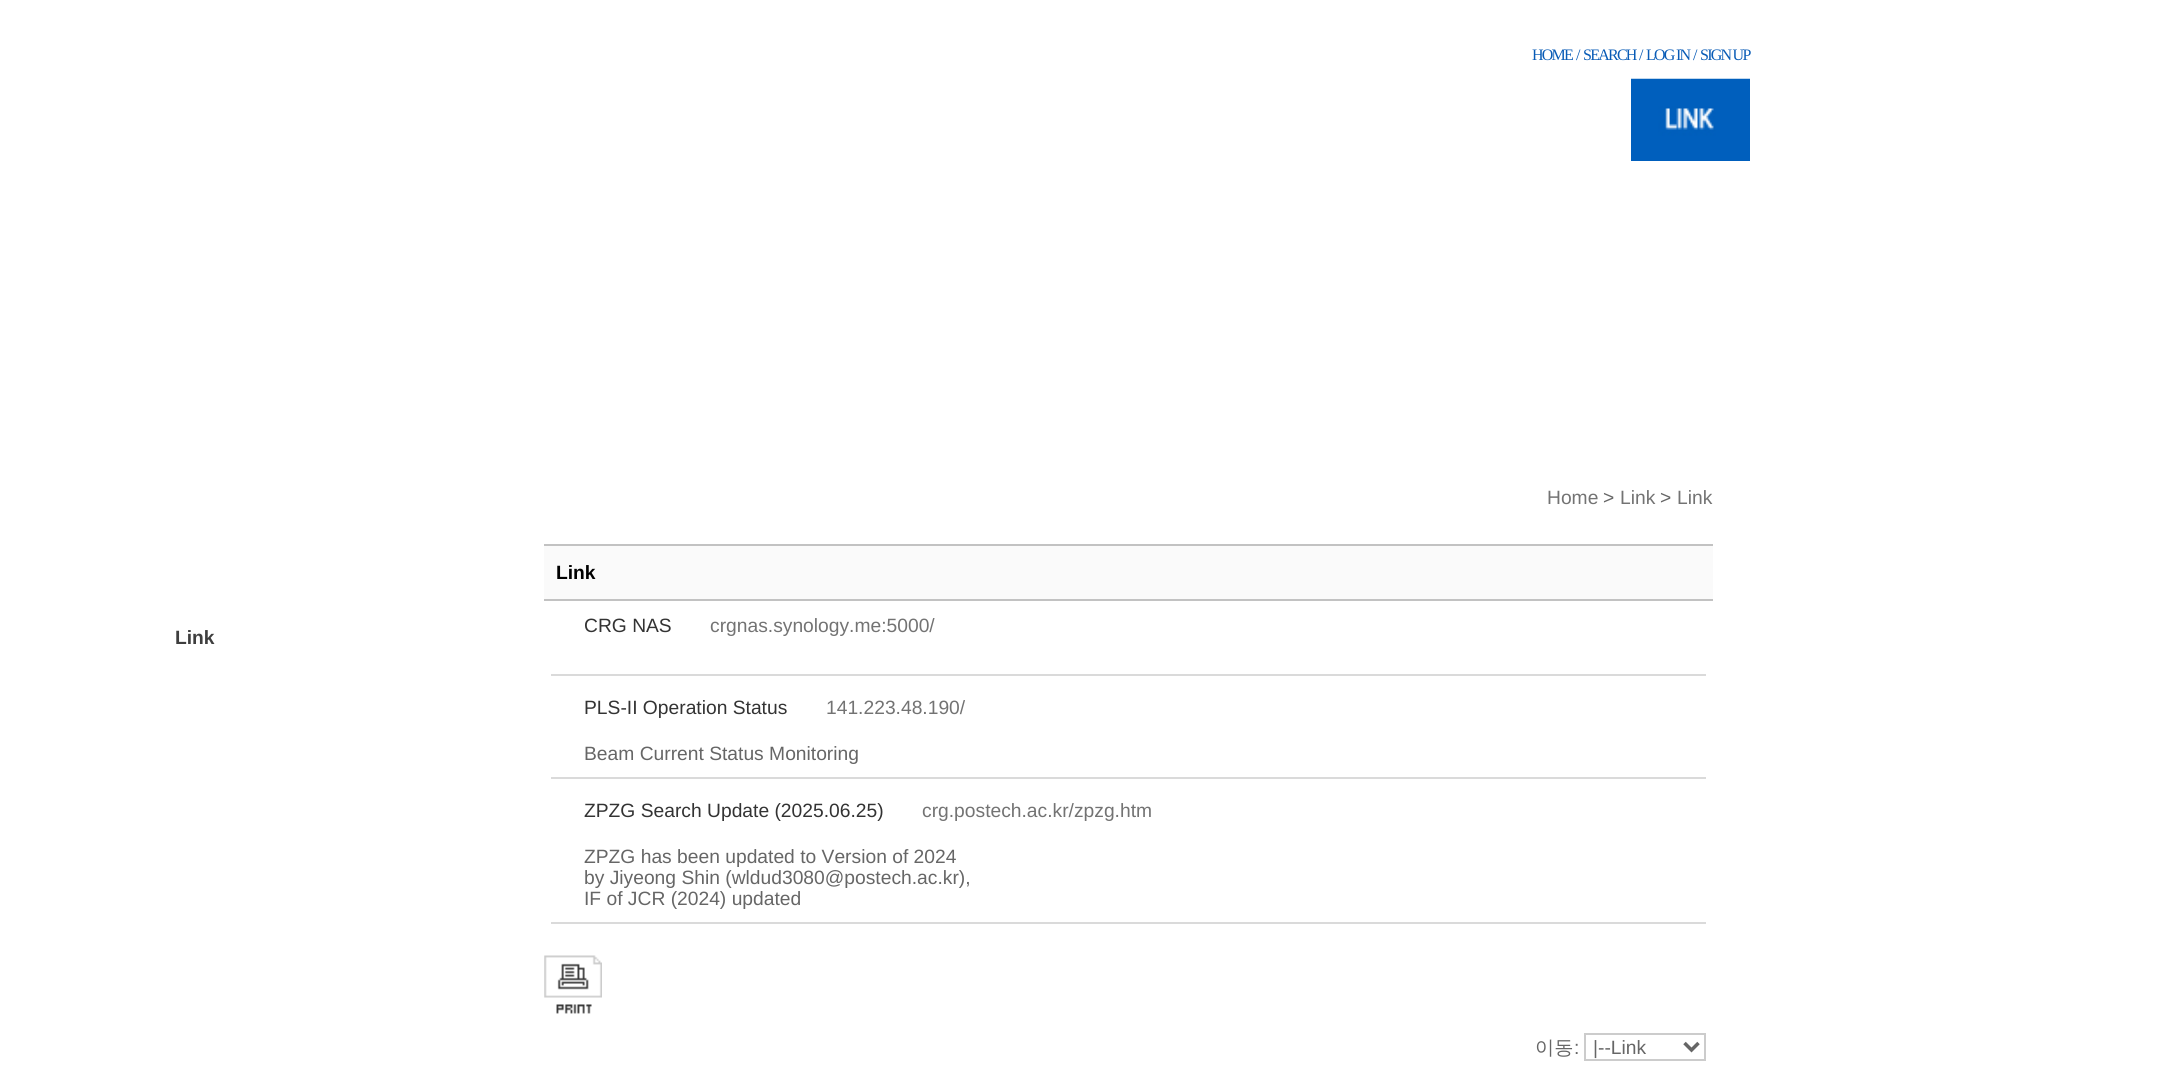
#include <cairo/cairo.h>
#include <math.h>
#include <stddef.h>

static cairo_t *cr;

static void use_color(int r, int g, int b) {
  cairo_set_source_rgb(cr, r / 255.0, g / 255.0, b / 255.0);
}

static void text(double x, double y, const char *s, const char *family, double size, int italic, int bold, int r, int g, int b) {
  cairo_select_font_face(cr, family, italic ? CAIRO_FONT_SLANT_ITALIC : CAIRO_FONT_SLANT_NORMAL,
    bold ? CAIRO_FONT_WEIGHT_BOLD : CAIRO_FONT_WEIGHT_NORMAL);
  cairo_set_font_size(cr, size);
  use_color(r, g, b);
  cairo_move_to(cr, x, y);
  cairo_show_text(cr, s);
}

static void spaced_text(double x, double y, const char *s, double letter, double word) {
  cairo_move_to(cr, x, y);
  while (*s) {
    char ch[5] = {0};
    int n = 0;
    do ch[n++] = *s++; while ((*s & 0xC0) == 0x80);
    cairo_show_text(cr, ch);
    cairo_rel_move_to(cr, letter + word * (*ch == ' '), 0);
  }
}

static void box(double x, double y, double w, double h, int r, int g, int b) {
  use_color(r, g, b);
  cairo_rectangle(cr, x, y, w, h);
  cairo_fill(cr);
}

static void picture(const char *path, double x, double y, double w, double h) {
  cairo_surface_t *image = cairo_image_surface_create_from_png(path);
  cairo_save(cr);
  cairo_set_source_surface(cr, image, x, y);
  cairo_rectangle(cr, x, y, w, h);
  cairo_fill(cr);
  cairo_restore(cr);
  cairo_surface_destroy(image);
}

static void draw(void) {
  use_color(255, 255, 255);
  cairo_paint(cr);
  picture("img_01.png", 1631, 78, 119, 83);
  box(544, 544, 1169, 2, 194, 194, 194);
  box(544, 546, 1169, 53, 250, 250, 250);
  box(544, 599, 1169, 2, 194, 194, 194);
  box(551, 674, 1155, 2, 218, 218, 218);
  box(551, 777, 1155, 2, 218, 218, 218);
  box(551, 922, 1155, 2, 218, 218, 218);
  picture("img_02.png", 544, 955, 58, 59);
  cairo_rectangle(cr, 1585, 1034, 120, 26);
  use_color(204, 204, 204);
  cairo_stroke(cr);
  cairo_new_path(cr);
  cairo_move_to(cr, 1684.5, 1043);
  cairo_line_to(cr, 1691.5, 1050);
  cairo_line_to(cr, 1698.5, 1043);
  use_color(102, 102, 102);
  cairo_set_line_width(cr, 3.5);
  cairo_stroke(cr);
  cairo_select_font_face(cr, "Liberation Serif", CAIRO_FONT_SLANT_NORMAL, CAIRO_FONT_WEIGHT_NORMAL);
  cairo_set_font_size(cr, 16);
  use_color(8, 91, 182);
  spaced_text(1532, 60, "HOME", -1.75, 0);
  spaced_text(1576, 60, "/", -1.75, 0);
  spaced_text(1583, 60, "SEARCH", -1.75, 0);
  spaced_text(1639, 60, "/", -1.75, 0);
  spaced_text(1646, 60, "LOG IN", -1.75, 0);
  spaced_text(1693, 60, "/", -1.75, 0);
  spaced_text(1700, 60, "SIGN UP", -1.75, 0);
  text(175, 644, "Link", "Liberation Sans", 19.25, 0, 1, 62, 62, 62);
  text(1547, 504, "Home", "Liberation Sans", 19.25, 0, 0, 115, 115, 115);
  text(1603, 504, ">", "Liberation Sans", 19.25, 0, 0, 102, 102, 102);
  text(1620, 504, "Link", "Liberation Sans", 19.25, 0, 0, 115, 115, 115);
  text(1660, 504, ">", "Liberation Sans", 19.25, 0, 0, 102, 102, 102);
  text(1677, 504, "Link", "Liberation Sans", 19.25, 0, 0, 115, 115, 115);
  text(556, 579, "Link", "Liberation Sans", 19.25, 0, 1, 0, 0, 0);
  text(584, 632, "CRG NAS", "Liberation Sans", 19.25, 0, 0, 51, 51, 51);
  text(710, 632, "crgnas.synology.me:5000/", "Liberation Sans", 19.25, 0, 0, 115, 115, 115);
  text(584, 714, "PLS-II Operation Status", "Liberation Sans", 19.25, 0, 0, 51, 51, 51);
  text(826, 714, "141.223.48.190/", "Liberation Sans", 19.25, 0, 0, 115, 115, 115);
  text(584, 760, "Beam Current Status Monitoring", "Liberation Sans", 19.25, 0, 0, 102, 102, 102);
  text(584, 817, "ZPZG Search Update (2025.06.25)", "Liberation Sans", 19.25, 0, 0, 51, 51, 51);
  text(922, 817, "crg.postech.ac.kr/zpzg.htm", "Liberation Sans", 19.25, 0, 0, 115, 115, 115);
  text(584, 863, "ZPZG has been updated to Version of 2024", "Liberation Sans", 19.25, 0, 0, 102, 102, 102);
  text(584, 884, "by Jiyeong Shin (wldud3080@postech.ac.kr),", "Liberation Sans", 19.25, 0, 0, 102, 102, 102);
  text(584, 905, "IF of JCR (2024) updated", "Liberation Sans", 19.25, 0, 0, 102, 102, 102);
  text(1535, 1054, "이동", "WenQuanYi Zen Hei Medium", 19.25, 0, 0, 102, 102, 102);
  text(1574, 1054, ":", "Liberation Sans", 19.25, 0, 0, 102, 102, 102);
  text(1593, 1054, "|--Link", "Liberation Sans", 19.25, 0, 0, 102, 102, 102);
}

int main(void) {
  cairo_surface_t *surface = cairo_image_surface_create(CAIRO_FORMAT_RGB24, 2179, 1080);
  cr = cairo_create(surface);
  cairo_font_options_t *options = cairo_font_options_create();
  cairo_font_options_set_hint_metrics(options, CAIRO_HINT_METRICS_OFF);
  cairo_font_options_set_hint_style(options, CAIRO_HINT_STYLE_NONE);
  cairo_set_font_options(cr, options);
  cairo_set_miter_limit(cr, 4);
  draw();
  cairo_surface_write_to_png(surface, "out.png");
  cairo_font_options_destroy(options);
  cairo_destroy(cr);
  cairo_surface_destroy(surface);
  return 0;
}
